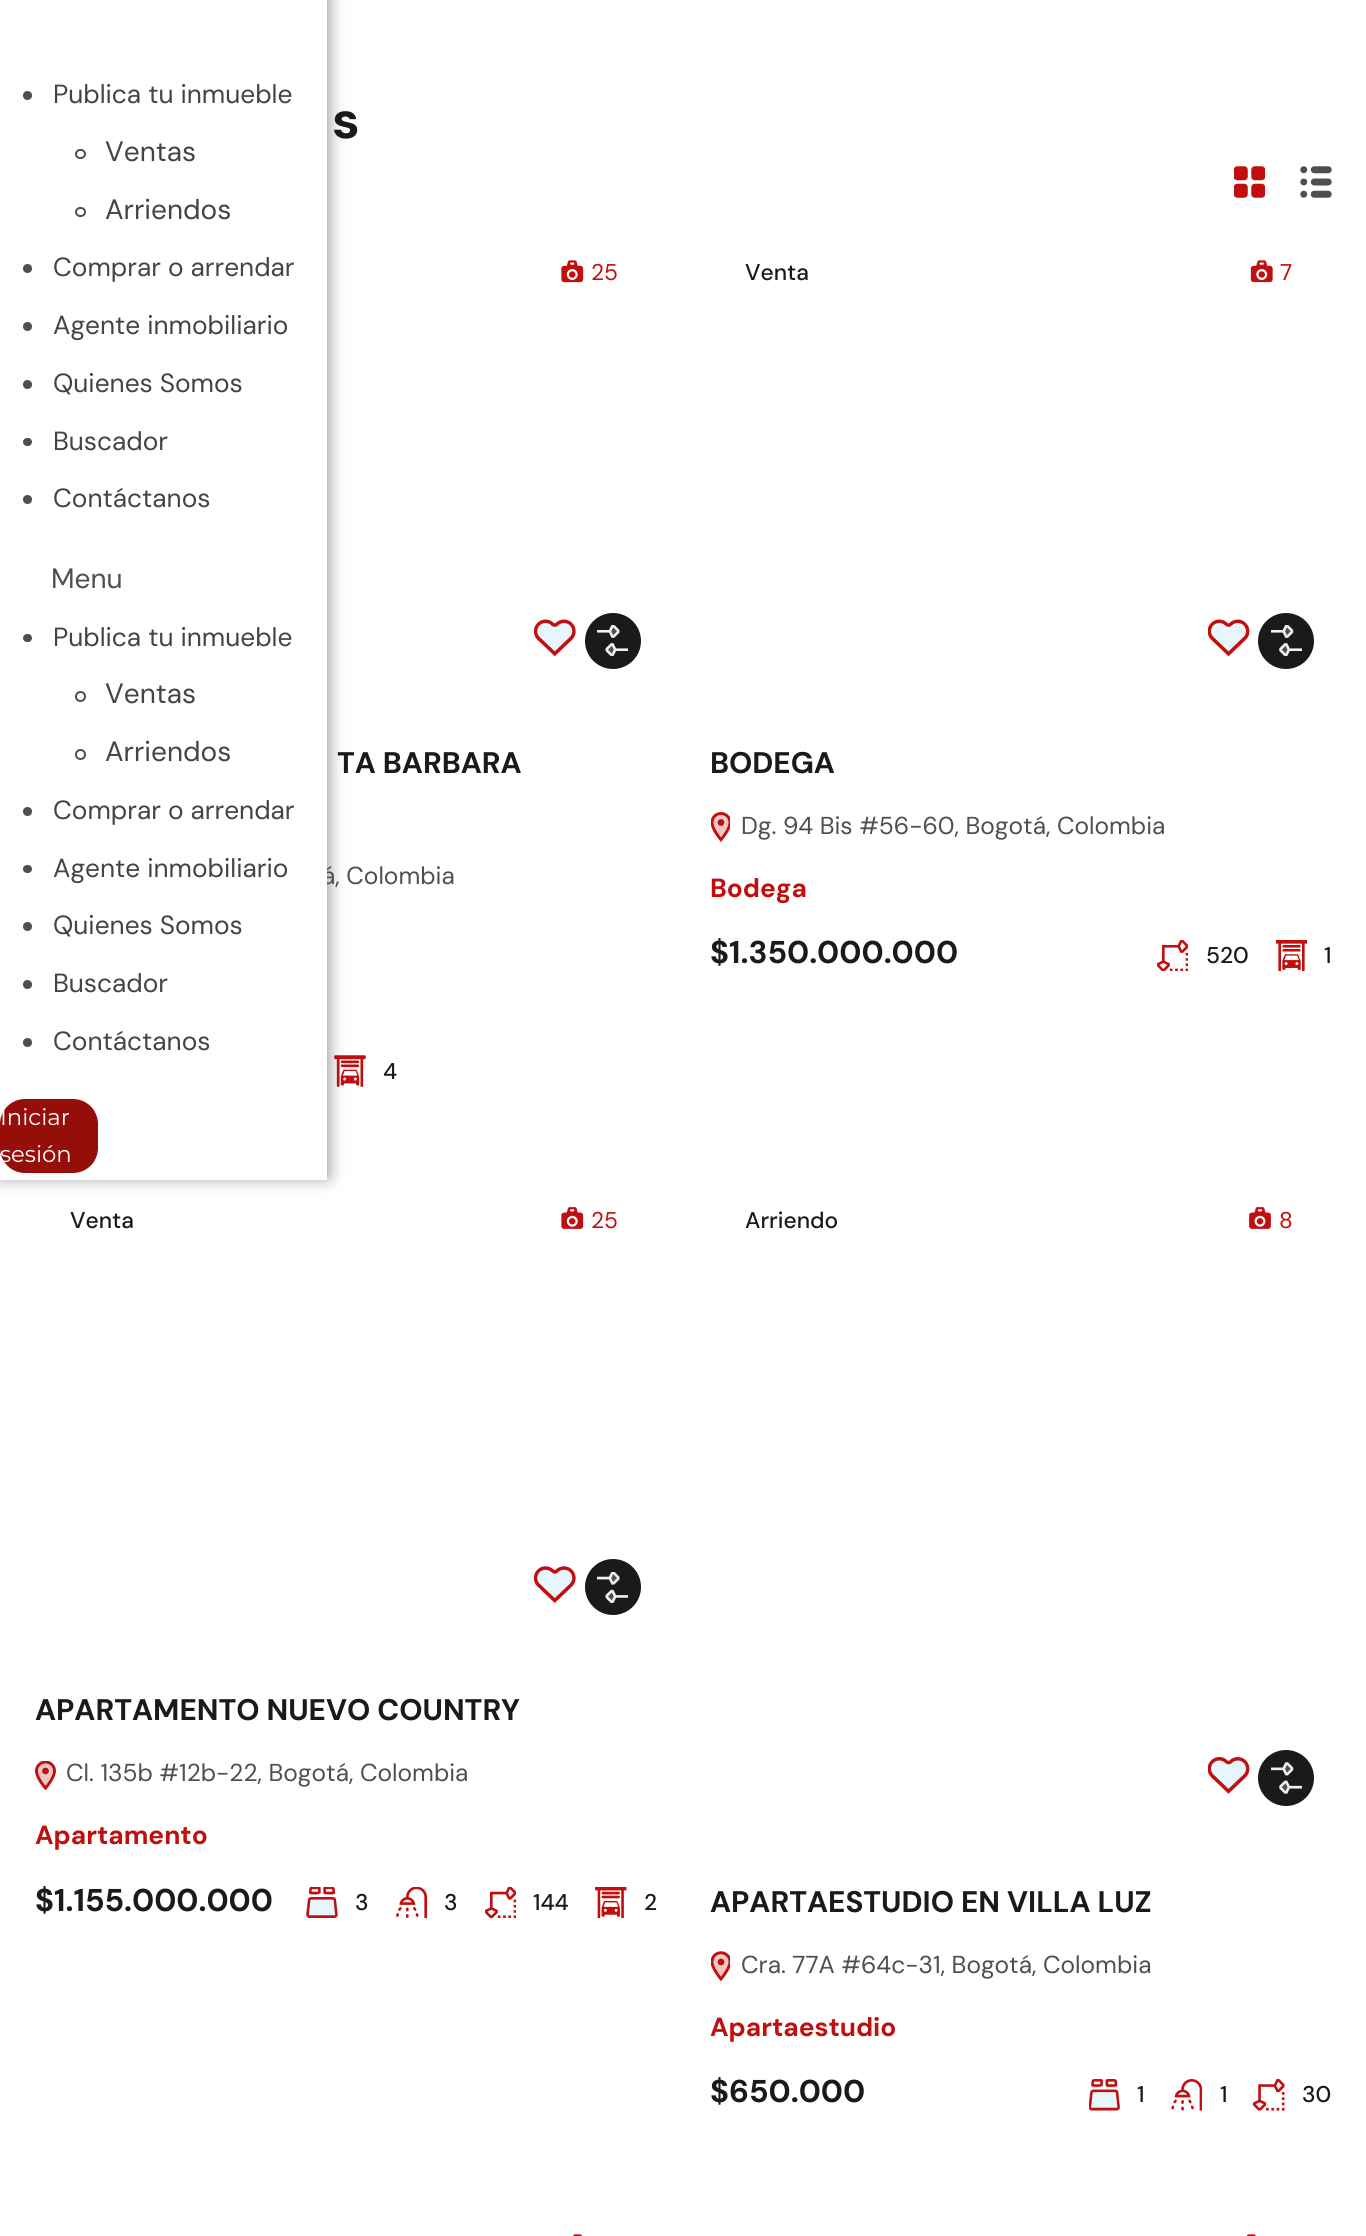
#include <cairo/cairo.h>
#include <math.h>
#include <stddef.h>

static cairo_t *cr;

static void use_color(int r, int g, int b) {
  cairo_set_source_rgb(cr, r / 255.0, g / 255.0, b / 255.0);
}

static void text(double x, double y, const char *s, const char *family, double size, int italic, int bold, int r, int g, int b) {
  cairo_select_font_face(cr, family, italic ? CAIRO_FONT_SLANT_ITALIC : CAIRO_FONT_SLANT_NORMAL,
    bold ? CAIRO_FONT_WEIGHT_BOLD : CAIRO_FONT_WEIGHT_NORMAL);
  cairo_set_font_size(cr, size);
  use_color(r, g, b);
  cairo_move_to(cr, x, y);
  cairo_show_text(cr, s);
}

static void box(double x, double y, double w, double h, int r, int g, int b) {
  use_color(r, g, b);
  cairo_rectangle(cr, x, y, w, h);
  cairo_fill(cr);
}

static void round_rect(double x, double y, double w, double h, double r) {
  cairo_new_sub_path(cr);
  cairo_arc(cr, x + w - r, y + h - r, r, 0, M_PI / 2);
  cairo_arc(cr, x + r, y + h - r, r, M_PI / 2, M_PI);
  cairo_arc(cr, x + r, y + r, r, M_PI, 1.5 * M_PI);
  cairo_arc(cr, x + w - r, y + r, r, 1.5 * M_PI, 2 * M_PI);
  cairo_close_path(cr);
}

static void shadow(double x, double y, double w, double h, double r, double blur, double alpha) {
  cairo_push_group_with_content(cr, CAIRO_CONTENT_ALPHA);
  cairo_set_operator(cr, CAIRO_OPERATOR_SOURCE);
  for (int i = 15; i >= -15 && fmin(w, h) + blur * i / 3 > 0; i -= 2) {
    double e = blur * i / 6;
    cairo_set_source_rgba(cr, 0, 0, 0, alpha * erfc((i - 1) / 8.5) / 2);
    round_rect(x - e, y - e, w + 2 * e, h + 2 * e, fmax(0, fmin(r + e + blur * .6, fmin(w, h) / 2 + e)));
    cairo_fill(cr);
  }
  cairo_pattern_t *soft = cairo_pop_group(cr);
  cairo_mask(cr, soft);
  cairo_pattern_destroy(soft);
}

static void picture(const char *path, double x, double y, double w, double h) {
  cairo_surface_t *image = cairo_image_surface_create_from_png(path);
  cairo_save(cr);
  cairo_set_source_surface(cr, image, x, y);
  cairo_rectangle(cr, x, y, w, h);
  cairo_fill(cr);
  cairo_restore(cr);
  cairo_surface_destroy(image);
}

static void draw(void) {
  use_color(255, 255, 255);
  cairo_paint(cr);
  picture("img_06.png", 334, 1055, 32, 32);
  use_color(0, 0, 0);
  shadow(0, -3, 327, 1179, 0, 9, 0.5);
  picture("img_01.png", 1234, 166, 31, 32);
  picture("img_02.png", 1300, 166, 32, 32);
  picture("img_03.png", 561, 260, 23, 23);
  picture("img_04.png", 534, 619, 42, 38);
  use_color(26, 26, 26);
  cairo_arc(cr, 613, 641, 28, 0, 2 * M_PI);
  cairo_fill(cr);
  picture("img_05.png", 597, 625, 31, 31);
  picture("img_07.png", 1250, 260, 23, 23);
  picture("img_08.png", 1208, 619, 42, 38);
  cairo_arc(cr, 1286, 641, 28, 0, 2 * M_PI);
  cairo_fill(cr);
  picture("img_09.png", 1271, 625, 31, 31);
  picture("img_10.png", 711, 812, 19, 30);
  picture("img_11.png", 1157, 940, 31, 31);
  picture("img_12.png", 1276, 940, 31, 31);
  picture("img_13.png", 561, 1207, 23, 22);
  picture("img_14.png", 534, 1566, 42, 37);
  cairo_arc(cr, 613, 1587, 28, 0, 2 * M_PI);
  cairo_fill(cr);
  picture("img_15.png", 597, 1572, 31, 31);
  picture("img_16.png", 35, 1761, 21, 29);
  picture("img_17.png", 306, 1887, 32, 31);
  picture("img_18.png", 396, 1887, 31, 31);
  picture("img_19.png", 485, 1887, 31, 31);
  picture("img_20.png", 595, 1887, 32, 31);
  picture("img_21.png", 1249, 1207, 22, 22);
  picture("img_22.png", 1208, 1757, 42, 37);
  cairo_arc(cr, 1286, 1778, 28, 0, 2 * M_PI);
  cairo_fill(cr);
  picture("img_23.png", 1271, 1762, 31, 32);
  picture("img_24.png", 711, 1951, 19, 30);
  picture("img_25.png", 1089, 2079, 31, 32);
  picture("img_26.png", 1171, 2079, 31, 32);
  picture("img_27.png", 1253, 2079, 32, 32);
  picture("img_28.png", 573, 2234, 9, 2);
  picture("img_29.png", 1246, 2234, 10, 2);
  text(332, 138, "s", "DM Sans", 52, 0, 1, 26, 26, 26);
  text(591, 280, "25", "DM Sans", 22.75, 0, 0, 193, 15, 15);
  text(337, 773, "TA BARBARA", "DM Sans", 29.75, 0, 1, 26, 26, 26);
  text(322, 884, "á, Colombia", "DM Sans", 24.5, 0, 0, 79, 79, 79);
  box(0, 0, 327, 1180, 255, 255, 255);
  use_color(149, 14, 10);
  round_rect(0, 1099, 98, 74, 25);
  cairo_fill(cr);
  text(0, 1162, "sesión", "Montserrat", 22.75, 0, 0, 255, 255, 255);
  text(0, 1125, "Iniciar", "Montserrat", 22.75, 0, 0, 255, 255, 255);
  text(53, 1050, "Contáctanos", "DM Sans", 26.25, 0, 0, 68, 68, 68);
  use_color(79, 79, 79);
  cairo_new_path(cr);
  cairo_arc(cr, 27.5, 1042.5, 4.5, 0, 2 * M_PI);
  cairo_fill(cr);
  text(53, 992, "Buscador", "DM Sans", 26.25, 0, 0, 68, 68, 68);
  use_color(79, 79, 79);
  cairo_new_path(cr);
  cairo_arc(cr, 27.5, 984.5, 4.5, 0, 2 * M_PI);
  cairo_fill(cr);
  text(53, 934, "Quienes Somos", "DM Sans", 26.25, 0, 0, 68, 68, 68);
  use_color(79, 79, 79);
  cairo_new_path(cr);
  cairo_arc(cr, 27.5, 926.5, 4.5, 0, 2 * M_PI);
  cairo_fill(cr);
  text(53, 877, "Agente inmobiliario", "DM Sans", 26.25, 0, 0, 68, 68, 68);
  use_color(79, 79, 79);
  round_rect(23, 865, 9, 8, 4);
  cairo_fill(cr);
  text(53, 819, "Comprar o arrendar", "DM Sans", 26.25, 0, 0, 68, 68, 68);
  use_color(79, 79, 79);
  cairo_new_path(cr);
  cairo_arc(cr, 27.5, 811.5, 4.5, 0, 2 * M_PI);
  cairo_fill(cr);
  text(105, 761, "Arriendos", "DM Sans", 28, 0, 0, 68, 68, 68);
  cairo_new_path(cr);
  cairo_arc(cr, 80.5, 754.5, 4.5, 0, 2 * M_PI);
  use_color(79, 79, 79);
  cairo_stroke(cr);
  text(105, 703, "Ventas", "DM Sans", 28, 0, 0, 68, 68, 68);
  cairo_new_path(cr);
  cairo_arc(cr, 80.5, 696.5, 4.5, 0, 2 * M_PI);
  use_color(79, 79, 79);
  cairo_stroke(cr);
  text(53, 646, "Publica tu inmueble", "DM Sans", 26.25, 0, 0, 68, 68, 68);
  use_color(79, 79, 79);
  round_rect(23, 634, 9, 8, 4);
  cairo_fill(cr);
  text(51, 588, "Menu", "DM Sans", 28, 0, 0, 79, 79, 79);
  text(53, 507, "Contáctanos", "DM Sans", 26.25, 0, 0, 68, 68, 68);
  use_color(79, 79, 79);
  cairo_new_path(cr);
  cairo_arc(cr, 27.5, 499.5, 4.5, 0, 2 * M_PI);
  cairo_fill(cr);
  text(53, 450, "Buscador", "DM Sans", 26.25, 0, 0, 68, 68, 68);
  use_color(79, 79, 79);
  round_rect(23, 438, 9, 8, 4);
  cairo_fill(cr);
  text(53, 392, "Quienes Somos", "DM Sans", 26.25, 0, 0, 68, 68, 68);
  use_color(79, 79, 79);
  cairo_new_path(cr);
  cairo_arc(cr, 27.5, 384.5, 4.5, 0, 2 * M_PI);
  cairo_fill(cr);
  text(53, 334, "Agente inmobiliario", "DM Sans", 26.25, 0, 0, 68, 68, 68);
  use_color(79, 79, 79);
  cairo_new_path(cr);
  cairo_arc(cr, 27.5, 326.5, 4.5, 0, 2 * M_PI);
  cairo_fill(cr);
  text(53, 276, "Comprar o arrendar", "DM Sans", 26.25, 0, 0, 68, 68, 68);
  use_color(79, 79, 79);
  cairo_new_path(cr);
  cairo_arc(cr, 27.5, 268.5, 4.5, 0, 2 * M_PI);
  cairo_fill(cr);
  text(105, 219, "Arriendos", "DM Sans", 28, 0, 0, 68, 68, 68);
  round_rect(76, 208, 9, 8, 4);
  use_color(79, 79, 79);
  cairo_stroke(cr);
  text(105, 161, "Ventas", "DM Sans", 28, 0, 0, 68, 68, 68);
  round_rect(76, 150, 9, 8, 4);
  use_color(79, 79, 79);
  cairo_stroke(cr);
  text(53, 103, "Publica tu inmueble", "DM Sans", 26.25, 0, 0, 68, 68, 68);
  use_color(79, 79, 79);
  cairo_new_path(cr);
  cairo_arc(cr, 27.5, 95.5, 4.5, 0, 2 * M_PI);
  cairo_fill(cr);
  text(383, 1079, "4", "DM Sans Medium", 22.75, 0, 0, 26, 26, 26);
  text(745, 280, "Venta", "DM Sans Medium", 22.75, 0, 0, 26, 26, 26);
  text(1280, 280, "7", "DM Sans", 22.75, 0, 0, 193, 15, 15);
  text(710, 773, "BODEGA", "DM Sans", 29.75, 0, 1, 26, 26, 26);
  text(741, 834, "Dg. 94 Bis #56-60, Bogotá, Colombia", "DM Sans", 24.5, 0, 0, 79, 79, 79);
  text(710, 897, "Bodega", "DM Sans", 26.25, 0, 1, 193, 15, 15);
  text(710, 963, "$1.350.000.000", "DM Sans", 31.5, 0, 1, 26, 26, 26);
  text(1206, 963, "520", "DM Sans Medium", 22.75, 0, 0, 26, 26, 26);
  text(1324, 963, "1", "DM Sans Medium", 22.75, 0, 0, 26, 26, 26);
  text(70, 1228, "Venta", "DM Sans Medium", 22.75, 0, 0, 26, 26, 26);
  text(591, 1228, "25", "DM Sans", 22.75, 0, 0, 193, 15, 15);
  text(35, 1720, "APARTAMENTO NUEVO COUNTRY", "DM Sans", 29.75, 0, 1, 26, 26, 26);
  text(66, 1781, "Cl. 135b #12b-22, Bogotá, Colombia", "DM Sans", 24.5, 0, 0, 79, 79, 79);
  text(35, 1844, "Apartamento", "DM Sans", 26.25, 0, 1, 193, 15, 15);
  text(35, 1911, "$1.155.000.000", "DM Sans", 31.5, 0, 1, 26, 26, 26);
  text(355, 1910, "3", "DM Sans Medium", 22.75, 0, 0, 26, 26, 26);
  text(444, 1910, "3", "DM Sans Medium", 22.75, 0, 0, 26, 26, 26);
  text(533, 1910, "144", "DM Sans Medium", 22.75, 0, 0, 26, 26, 26);
  text(644, 1910, "2", "DM Sans Medium", 22.75, 0, 0, 26, 26, 26);
  text(745, 1228, "Arriendo", "DM Sans Medium", 22.75, 0, 0, 26, 26, 26);
  text(1279, 1228, "8", "DM Sans", 22.75, 0, 0, 193, 15, 15);
  text(710, 1912, "APARTAESTUDIO EN VILLA LUZ", "DM Sans", 29.75, 0, 1, 26, 26, 26);
  text(741, 1973, "Cra. 77A #64c-31, Bogotá, Colombia", "DM Sans", 24.5, 0, 0, 79, 79, 79);
  text(710, 2036, "Apartaestudio", "DM Sans", 26.25, 0, 1, 193, 15, 15);
  text(710, 2102, "$650.000", "DM Sans", 31.5, 0, 1, 26, 26, 26);
  text(1137, 2102, "1", "DM Sans Medium", 22.75, 0, 0, 26, 26, 26);
  text(1220, 2102, "1", "DM Sans Medium", 22.75, 0, 0, 26, 26, 26);
  text(1302, 2102, "30", "DM Sans Medium", 22.75, 0, 0, 26, 26, 26);
}

int main(void) {
  cairo_surface_t *surface = cairo_image_surface_create(CAIRO_FORMAT_RGB24, 1366, 2236);
  cr = cairo_create(surface);
  cairo_font_options_t *options = cairo_font_options_create();
  cairo_font_options_set_hint_metrics(options, CAIRO_HINT_METRICS_OFF);
  cairo_font_options_set_hint_style(options, CAIRO_HINT_STYLE_NONE);
  cairo_set_font_options(cr, options);
  cairo_set_miter_limit(cr, 4);
  draw();
  cairo_surface_write_to_png(surface, "out.png");
  cairo_font_options_destroy(options);
  cairo_destroy(cr);
  cairo_surface_destroy(surface);
  return 0;
}
